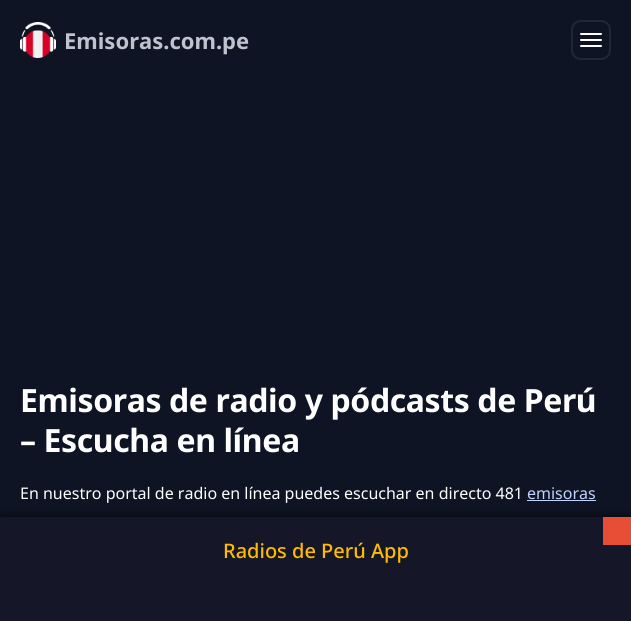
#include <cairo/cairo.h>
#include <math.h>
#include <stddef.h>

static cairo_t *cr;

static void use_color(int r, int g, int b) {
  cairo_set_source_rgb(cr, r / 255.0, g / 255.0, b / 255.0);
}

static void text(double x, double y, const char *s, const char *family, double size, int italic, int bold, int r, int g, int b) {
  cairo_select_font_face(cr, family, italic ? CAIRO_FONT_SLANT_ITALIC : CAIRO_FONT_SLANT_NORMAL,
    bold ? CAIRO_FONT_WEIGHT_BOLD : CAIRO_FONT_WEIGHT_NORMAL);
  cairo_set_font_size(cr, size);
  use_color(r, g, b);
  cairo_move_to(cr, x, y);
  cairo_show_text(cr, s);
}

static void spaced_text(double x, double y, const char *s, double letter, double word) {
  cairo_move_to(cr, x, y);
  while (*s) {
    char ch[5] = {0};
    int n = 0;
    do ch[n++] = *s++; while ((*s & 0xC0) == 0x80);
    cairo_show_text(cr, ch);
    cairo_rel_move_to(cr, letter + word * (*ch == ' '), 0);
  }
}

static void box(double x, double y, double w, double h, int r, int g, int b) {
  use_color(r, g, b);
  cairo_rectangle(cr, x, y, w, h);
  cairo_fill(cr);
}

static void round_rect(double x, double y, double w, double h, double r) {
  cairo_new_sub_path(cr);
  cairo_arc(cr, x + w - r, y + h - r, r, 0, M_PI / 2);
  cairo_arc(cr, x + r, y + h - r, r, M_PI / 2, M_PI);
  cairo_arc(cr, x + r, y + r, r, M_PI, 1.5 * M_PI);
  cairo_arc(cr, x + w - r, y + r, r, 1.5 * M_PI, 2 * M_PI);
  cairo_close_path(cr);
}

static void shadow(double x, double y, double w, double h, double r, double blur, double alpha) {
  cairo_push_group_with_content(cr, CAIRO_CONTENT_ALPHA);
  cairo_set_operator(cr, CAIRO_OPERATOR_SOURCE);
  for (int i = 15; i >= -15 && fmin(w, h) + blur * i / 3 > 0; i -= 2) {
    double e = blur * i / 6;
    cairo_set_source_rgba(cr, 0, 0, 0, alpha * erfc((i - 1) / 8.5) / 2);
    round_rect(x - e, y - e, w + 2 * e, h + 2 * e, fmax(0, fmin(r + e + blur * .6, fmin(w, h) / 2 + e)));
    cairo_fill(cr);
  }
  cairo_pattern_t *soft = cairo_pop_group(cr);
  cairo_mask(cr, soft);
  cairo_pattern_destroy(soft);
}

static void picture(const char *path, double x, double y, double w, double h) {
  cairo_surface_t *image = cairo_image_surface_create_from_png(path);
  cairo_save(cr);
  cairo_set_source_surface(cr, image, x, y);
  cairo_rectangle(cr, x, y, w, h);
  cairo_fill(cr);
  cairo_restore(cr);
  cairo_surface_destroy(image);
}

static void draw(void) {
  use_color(15, 20, 36);
  cairo_paint(cr);
  picture("img_01.png", 20, 22, 36, 36);
  round_rect(572, 21, 38, 38, 9);
  use_color(34, 39, 54);
  cairo_stroke(cr);
  use_color(255, 255, 255);
  round_rect(580, 39, 22, 2, 1);
  cairo_fill(cr);
  round_rect(580, 33, 22, 2, 1);
  cairo_fill(cr);
  round_rect(580, 45, 22, 2, 1);
  cairo_fill(cr);
  box(527, 500, 69, 1, 191, 212, 255);
  use_color(0, 0, 0);
  shadow(0, 517, 631, 104, 0, 5, 0.8);
  box(0, 517, 631, 104, 21, 23, 40);
  box(603, 517, 28, 28, 232, 78, 54);
  text(64, 49, "Emisoras.com.pe", "Noto Sans", 22, 0, 1, 192, 195, 205);
  cairo_set_font_size(cr, 32);
  use_color(255, 255, 255);
  spaced_text(20, 412, "Emisoras de radio y pódcasts de Perú", -0.4, 0);
  spaced_text(20, 452, "– Escucha en línea", -0.4, 0);
  text(20, 499, "En nuestro portal de radio en línea puedes escuchar en directo 481", "Noto Sans", 16, 0, 0, 255, 255, 255);
  text(527, 499, "emisoras", "Noto Sans", 16, 0, 0, 191, 212, 255);
  text(223, 558, "Radios de Perú App", "Noto Sans Medium", 20, 0, 0, 255, 187, 0);
}

int main(void) {
  cairo_surface_t *surface = cairo_image_surface_create(CAIRO_FORMAT_RGB24, 631, 621);
  cr = cairo_create(surface);
  cairo_font_options_t *options = cairo_font_options_create();
  cairo_font_options_set_hint_metrics(options, CAIRO_HINT_METRICS_OFF);
  cairo_font_options_set_hint_style(options, CAIRO_HINT_STYLE_NONE);
  cairo_set_font_options(cr, options);
  cairo_set_miter_limit(cr, 4);
  draw();
  cairo_surface_write_to_png(surface, "out.png");
  cairo_font_options_destroy(options);
  cairo_destroy(cr);
  cairo_surface_destroy(surface);
  return 0;
}
